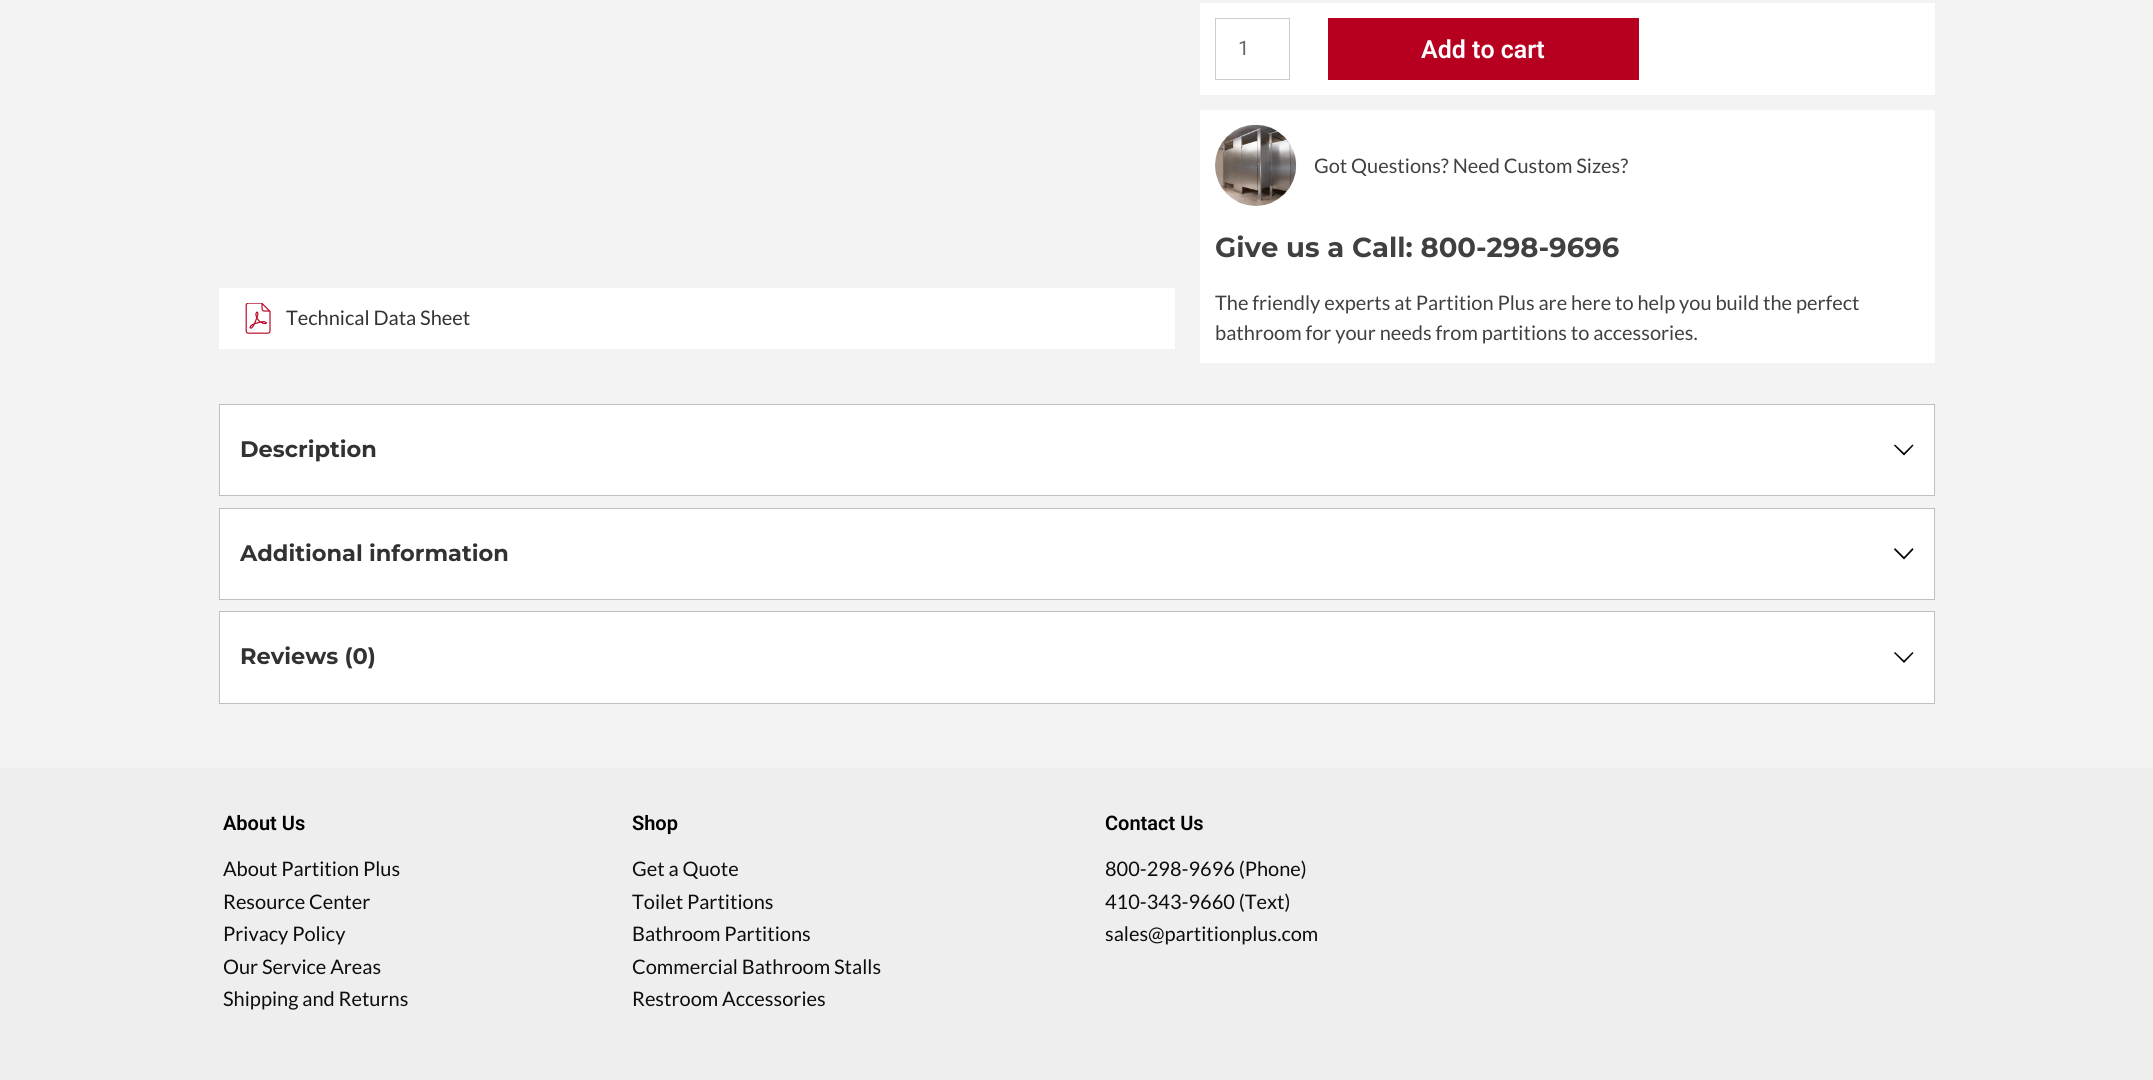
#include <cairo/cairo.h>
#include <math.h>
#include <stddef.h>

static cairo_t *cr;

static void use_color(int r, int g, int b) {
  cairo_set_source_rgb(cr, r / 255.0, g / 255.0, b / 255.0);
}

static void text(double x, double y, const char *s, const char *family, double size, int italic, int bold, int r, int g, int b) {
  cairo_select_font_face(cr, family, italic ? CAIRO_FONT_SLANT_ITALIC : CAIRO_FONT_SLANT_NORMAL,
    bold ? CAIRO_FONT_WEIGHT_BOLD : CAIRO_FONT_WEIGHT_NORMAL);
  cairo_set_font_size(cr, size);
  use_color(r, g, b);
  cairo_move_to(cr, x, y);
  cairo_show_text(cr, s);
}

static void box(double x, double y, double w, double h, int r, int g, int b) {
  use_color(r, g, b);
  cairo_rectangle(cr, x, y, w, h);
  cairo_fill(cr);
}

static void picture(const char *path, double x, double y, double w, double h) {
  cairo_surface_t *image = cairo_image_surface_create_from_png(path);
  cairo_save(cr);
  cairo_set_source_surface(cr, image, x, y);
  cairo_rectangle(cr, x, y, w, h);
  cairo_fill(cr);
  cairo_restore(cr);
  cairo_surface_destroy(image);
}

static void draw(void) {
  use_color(243, 243, 243);
  cairo_paint(cr);
  box(219, 288, 956, 61, 255, 255, 255);
  picture("img_01.png", 245, 303, 26, 31);
  box(1200, 3, 735, 92, 255, 255, 255);
  cairo_rectangle(cr, 1215.5, 18.5, 74, 61);
  use_color(204, 204, 204);
  cairo_set_line_width(cr, 1);
  cairo_stroke(cr);
  box(1328, 18, 311, 62, 183, 0, 32);
  box(1200, 110, 735, 253, 255, 255, 255);
  picture("img_02.png", 1215, 124, 82, 82);
  cairo_rectangle(cr, 219.5, 404.5, 1715, 91);
  cairo_fill_preserve(cr);
  use_color(191, 191, 191);
  cairo_stroke(cr);
  use_color(0, 0, 0);
  cairo_new_path(cr);
  cairo_move_to(cr, 1913.5, 445.5);
  cairo_line_to(cr, 1904, 455.5);
  cairo_line_to(cr, 1894, 445.5);
  cairo_line_to(cr, 1895, 444.5);
  cairo_line_to(cr, 1904, 453);
  cairo_line_to(cr, 1912.5, 444.5);
  cairo_close_path(cr);
  cairo_fill(cr);
  use_color(255, 255, 255);
  cairo_rectangle(cr, 219.5, 508.5, 1715, 91);
  cairo_fill_preserve(cr);
  use_color(191, 191, 191);
  cairo_stroke(cr);
  use_color(0, 0, 0);
  cairo_new_path(cr);
  cairo_move_to(cr, 1913.5, 549.5);
  cairo_line_to(cr, 1904, 559.5);
  cairo_line_to(cr, 1894, 549.5);
  cairo_line_to(cr, 1895, 548);
  cairo_line_to(cr, 1904, 557);
  cairo_line_to(cr, 1912.5, 548);
  cairo_close_path(cr);
  cairo_fill(cr);
  use_color(255, 255, 255);
  cairo_rectangle(cr, 219.5, 611.5, 1715, 92);
  cairo_fill_preserve(cr);
  use_color(191, 191, 191);
  cairo_stroke(cr);
  use_color(0, 0, 0);
  cairo_new_path(cr);
  cairo_move_to(cr, 1913.5, 653);
  cairo_line_to(cr, 1904, 663);
  cairo_line_to(cr, 1894, 653);
  cairo_line_to(cr, 1895, 652);
  cairo_line_to(cr, 1904, 660.5);
  cairo_line_to(cr, 1912.5, 652);
  cairo_close_path(cr);
  cairo_fill(cr);
  box(0, 768, 2153, 312, 238, 238, 238);
  text(286, 325, "Technical Data Sheet", "Lato", 20, 0, 0, 50, 50, 50);
  text(1238, 55, "1", "Roboto", 20, 0, 0, 102, 102, 102);
  text(1421, 58, "Add to cart", "Roboto SemiBold", 25, 0, 0, 255, 255, 255);
  text(1314, 173, "Got Questions? Need Custom Sizes?", "Lato", 20, 0, 0, 64, 64, 64);
  text(1215, 257, "Give us a Call: 800-298-9696", "Montserrat Thin", 27.5, 0, 0, 64, 64, 64);
  text(1215, 310, "The friendly experts at Partition Plus are here to help you build the perfect", "Lato", 20, 0, 0, 64, 64, 64);
  text(1215, 340, "bathroom for your needs from partitions to accessories.", "Lato", 20, 0, 0, 64, 64, 64);
  text(240, 457, "Description", "Montserrat Thin", 22.5, 0, 0, 50, 50, 50);
  text(240, 561, "Additional information", "Montserrat Thin", 22.5, 0, 0, 50, 50, 50);
  text(240, 664, "Reviews (0)", "Montserrat Thin", 22.5, 0, 0, 50, 50, 50);
  text(223, 830, "About Us", "Roboto SemiBold", 20, 0, 0, 0, 0, 0);
  text(223, 876, "About Partition Plus", "Lato", 20, 0, 0, 13, 13, 13);
  text(223, 909, "Resource Center", "Lato", 20, 0, 0, 13, 13, 13);
  text(223, 941, "Privacy Policy", "Lato", 20, 0, 0, 13, 13, 13);
  text(223, 974, "Our Service Areas", "Lato", 20, 0, 0, 13, 13, 13);
  text(223, 1006, "Shipping and Returns", "Lato", 20, 0, 0, 13, 13, 13);
  text(632, 830, "Shop", "Roboto SemiBold", 20, 0, 0, 0, 0, 0);
  text(632, 876, "Get a Quote", "Lato", 20, 0, 0, 13, 13, 13);
  text(632, 909, "Toilet Partitions", "Lato", 20, 0, 0, 13, 13, 13);
  text(632, 941, "Bathroom Partitions", "Lato", 20, 0, 0, 13, 13, 13);
  text(632, 974, "Commercial Bathroom Stalls", "Lato", 20, 0, 0, 13, 13, 13);
  text(632, 1006, "Restroom Accessories", "Lato", 20, 0, 0, 13, 13, 13);
  text(1105, 830, "Contact Us", "Roboto SemiBold", 20, 0, 0, 0, 0, 0);
  text(1105, 876, "800-298-9696 (Phone)", "Lato", 20, 0, 0, 13, 13, 13);
  text(1105, 909, "410-343-9660 (Text)", "Lato", 20, 0, 0, 13, 13, 13);
  text(1105, 941, "sales@partitionplus.com", "Lato", 20, 0, 0, 13, 13, 13);
}

int main(void) {
  cairo_surface_t *surface = cairo_image_surface_create(CAIRO_FORMAT_RGB24, 2153, 1080);
  cr = cairo_create(surface);
  cairo_font_options_t *options = cairo_font_options_create();
  cairo_font_options_set_hint_metrics(options, CAIRO_HINT_METRICS_OFF);
  cairo_font_options_set_hint_style(options, CAIRO_HINT_STYLE_NONE);
  cairo_set_font_options(cr, options);
  cairo_set_miter_limit(cr, 4);
  draw();
  cairo_surface_write_to_png(surface, "out.png");
  cairo_font_options_destroy(options);
  cairo_destroy(cr);
  cairo_surface_destroy(surface);
  return 0;
}
